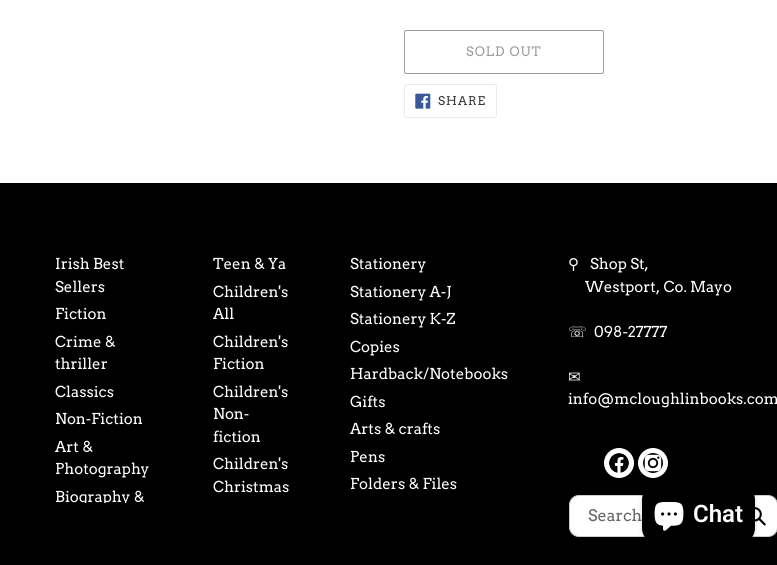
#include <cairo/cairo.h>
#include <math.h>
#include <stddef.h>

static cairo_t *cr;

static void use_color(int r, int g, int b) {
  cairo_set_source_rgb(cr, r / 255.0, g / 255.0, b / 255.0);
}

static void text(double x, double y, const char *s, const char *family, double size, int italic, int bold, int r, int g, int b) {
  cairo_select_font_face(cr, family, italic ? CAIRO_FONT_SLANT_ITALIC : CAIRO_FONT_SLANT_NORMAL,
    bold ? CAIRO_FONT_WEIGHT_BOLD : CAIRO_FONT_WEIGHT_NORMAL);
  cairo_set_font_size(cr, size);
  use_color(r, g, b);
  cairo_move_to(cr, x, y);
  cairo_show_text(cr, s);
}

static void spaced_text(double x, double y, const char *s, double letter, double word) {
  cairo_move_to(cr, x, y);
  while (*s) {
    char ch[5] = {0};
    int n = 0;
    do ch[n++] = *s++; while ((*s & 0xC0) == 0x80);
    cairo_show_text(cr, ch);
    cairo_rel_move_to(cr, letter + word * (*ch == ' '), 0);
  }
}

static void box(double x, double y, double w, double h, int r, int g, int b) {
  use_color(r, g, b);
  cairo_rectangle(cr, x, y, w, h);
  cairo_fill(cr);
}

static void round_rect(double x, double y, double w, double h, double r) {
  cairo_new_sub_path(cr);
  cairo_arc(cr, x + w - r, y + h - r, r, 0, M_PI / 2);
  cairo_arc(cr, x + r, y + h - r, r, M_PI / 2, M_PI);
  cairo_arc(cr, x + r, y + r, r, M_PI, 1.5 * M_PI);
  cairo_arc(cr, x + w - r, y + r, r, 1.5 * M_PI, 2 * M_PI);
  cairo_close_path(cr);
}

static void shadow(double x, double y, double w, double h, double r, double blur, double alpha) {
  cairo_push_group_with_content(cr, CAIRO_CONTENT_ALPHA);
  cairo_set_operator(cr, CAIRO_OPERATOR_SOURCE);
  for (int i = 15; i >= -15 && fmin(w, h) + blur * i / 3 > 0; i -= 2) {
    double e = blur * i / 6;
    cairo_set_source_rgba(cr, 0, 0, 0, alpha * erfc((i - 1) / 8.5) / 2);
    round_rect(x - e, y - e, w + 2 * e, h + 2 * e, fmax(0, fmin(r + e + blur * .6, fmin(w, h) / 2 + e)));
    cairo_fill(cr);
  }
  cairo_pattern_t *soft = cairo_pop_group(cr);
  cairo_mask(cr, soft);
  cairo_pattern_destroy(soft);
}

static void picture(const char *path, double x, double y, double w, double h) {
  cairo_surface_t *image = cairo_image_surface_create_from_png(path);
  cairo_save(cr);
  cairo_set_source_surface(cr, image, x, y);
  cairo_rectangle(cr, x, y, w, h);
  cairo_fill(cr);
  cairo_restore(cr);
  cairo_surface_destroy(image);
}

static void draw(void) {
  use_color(255, 255, 255);
  cairo_paint(cr);
  round_rect(404.5, 30.5, 199, 43, 1.5);
  use_color(157, 157, 157);
  cairo_set_line_width(cr, 1);
  cairo_stroke(cr);
  round_rect(404.5, 84.5, 92, 33, 1.5);
  use_color(235, 235, 235);
  cairo_stroke(cr);
  picture("img_01.png", 415, 93, 16, 16);
  box(0, 183, 777, 382, 0, 0, 0);
  use_color(255, 255, 255);
  cairo_arc(cr, 619, 463, 15, 0, 2 * M_PI);
  cairo_fill(cr);
  picture("img_02.png", 609, 453, 20, 20);
  cairo_arc(cr, 653, 463, 15, 0, 2 * M_PI);
  cairo_fill(cr);
  picture("img_03.png", 643, 453, 20, 20);
  round_rect(569.5, 495.5, 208, 41, 9.5);
  cairo_fill_preserve(cr);
  use_color(204, 204, 204);
  cairo_stroke(cr);
  picture("img_04.png", 755, 507, 11, 19);
  use_color(0, 0, 0);
  shadow(642, 484, 113, 60, 16, 2.5, 0.15);
  use_color(0, 0, 0);
  round_rect(642, 484, 113, 60, 16);
  cairo_fill(cr);
  picture("img_05.png", 654, 502, 30, 29);
  cairo_select_font_face(cr, "Arvo", CAIRO_FONT_SLANT_NORMAL, CAIRO_FONT_WEIGHT_NORMAL);
  cairo_set_font_size(cr, 13);
  use_color(157, 157, 157);
  spaced_text(466, 56, "SOLD OUT", 1, 0);
  cairo_set_font_size(cr, 12);
  use_color(58, 58, 58);
  spaced_text(438, 105, "SHARE", 1, 0);
  text(55, 269, "Irish Best", "Arvo", 15, 0, 0, 255, 255, 255);
  text(55, 292, "Sellers", "Arvo", 15, 0, 0, 255, 255, 255);
  text(55, 319, "Fiction", "Arvo", 15, 0, 0, 255, 255, 255);
  text(55, 347, "Crime &", "Arvo", 15, 0, 0, 255, 255, 255);
  text(55, 369, "thriller", "Arvo", 15, 0, 0, 255, 255, 255);
  text(55, 397, "Classics", "Arvo", 15, 0, 0, 255, 255, 255);
  text(55, 424, "Non-Fiction", "Arvo", 15, 0, 0, 255, 255, 255);
  text(55, 452, "Art &", "Arvo", 15, 0, 0, 255, 255, 255);
  text(55, 474, "Photography", "Arvo", 15, 0, 0, 255, 255, 255);
  cairo_save(cr);
  cairo_rectangle(cr, 55, 253, 128, 250);
  cairo_clip(cr);
  text(55, 502, "Biography &", "Arvo", 15, 0, 0, 255, 255, 255);
  cairo_restore(cr);
  cairo_save(cr);
  cairo_rectangle(cr, 213, 253, 107, 250);
  cairo_clip(cr);
  text(213, 269, "Teen & Ya", "Arvo", 15, 0, 0, 255, 255, 255);
  cairo_restore(cr);
  text(213, 297, "Children's", "Arvo", 15, 0, 0, 255, 255, 255);
  text(213, 319, "All", "Arvo", 15, 0, 0, 255, 255, 255);
  text(213, 347, "Children's", "Arvo", 15, 0, 0, 255, 255, 255);
  text(213, 369, "Fiction", "Arvo", 15, 0, 0, 255, 255, 255);
  text(213, 397, "Children's", "Arvo", 15, 0, 0, 255, 255, 255);
  text(213, 419, "Non-", "Arvo", 15, 0, 0, 255, 255, 255);
  text(213, 442, "fiction", "Arvo", 15, 0, 0, 255, 255, 255);
  text(213, 469, "Children's", "Arvo", 15, 0, 0, 255, 255, 255);
  text(213, 492, "Christmas", "Arvo", 15, 0, 0, 255, 255, 255);
  text(350, 269, "Stationery", "Arvo", 15, 0, 0, 255, 255, 255);
  text(350, 297, "Stationery A-J", "Arvo", 15, 0, 0, 255, 255, 255);
  text(350, 324, "Stationery K-Z", "Arvo", 15, 0, 0, 255, 255, 255);
  text(350, 352, "Copies", "Arvo", 15, 0, 0, 255, 255, 255);
  text(350, 379, "Hardback/Notebooks", "Arvo", 15, 0, 0, 255, 255, 255);
  text(350, 407, "Gifts", "Arvo", 15, 0, 0, 255, 255, 255);
  text(350, 434, "Arts & crafts", "Arvo", 15, 0, 0, 255, 255, 255);
  text(350, 462, "Pens", "Arvo", 15, 0, 0, 255, 255, 255);
  text(350, 489, "Folders & Files", "Arvo", 15, 0, 0, 255, 255, 255);
  text(568, 269, "⚲", "DejaVu Sans", 15, 0, 0, 255, 255, 255);
  text(590, 269, "Shop St,", "Arvo", 15, 0, 0, 255, 255, 255);
  text(585, 292, "Westport, Co. Mayo", "Arvo", 15, 0, 0, 255, 255, 255);
  text(568, 337, "☏", "DejaVu Sans", 15, 0, 0, 255, 255, 255);
  text(594, 337, "098-27777", "Arvo", 15, 0, 0, 255, 255, 255);
  text(568, 382, "✉", "DejaVu Sans", 15, 0, 0, 255, 255, 255);
  text(568, 404, "info@mcloughlinbooks.com", "Arvo", 15, 0, 0, 255, 255, 255);
  text(588, 521, "Search", "Arvo", 16, 0, 0, 102, 102, 102);
  text(693, 522, "Chat", "Roboto SemiBold", 24, 0, 0, 255, 255, 255);
}

int main(void) {
  cairo_surface_t *surface = cairo_image_surface_create(CAIRO_FORMAT_RGB24, 777, 565);
  cr = cairo_create(surface);
  cairo_font_options_t *options = cairo_font_options_create();
  cairo_font_options_set_hint_metrics(options, CAIRO_HINT_METRICS_OFF);
  cairo_font_options_set_hint_style(options, CAIRO_HINT_STYLE_NONE);
  cairo_set_font_options(cr, options);
  cairo_set_miter_limit(cr, 4);
  draw();
  cairo_surface_write_to_png(surface, "out.png");
  cairo_font_options_destroy(options);
  cairo_destroy(cr);
  cairo_surface_destroy(surface);
  return 0;
}
